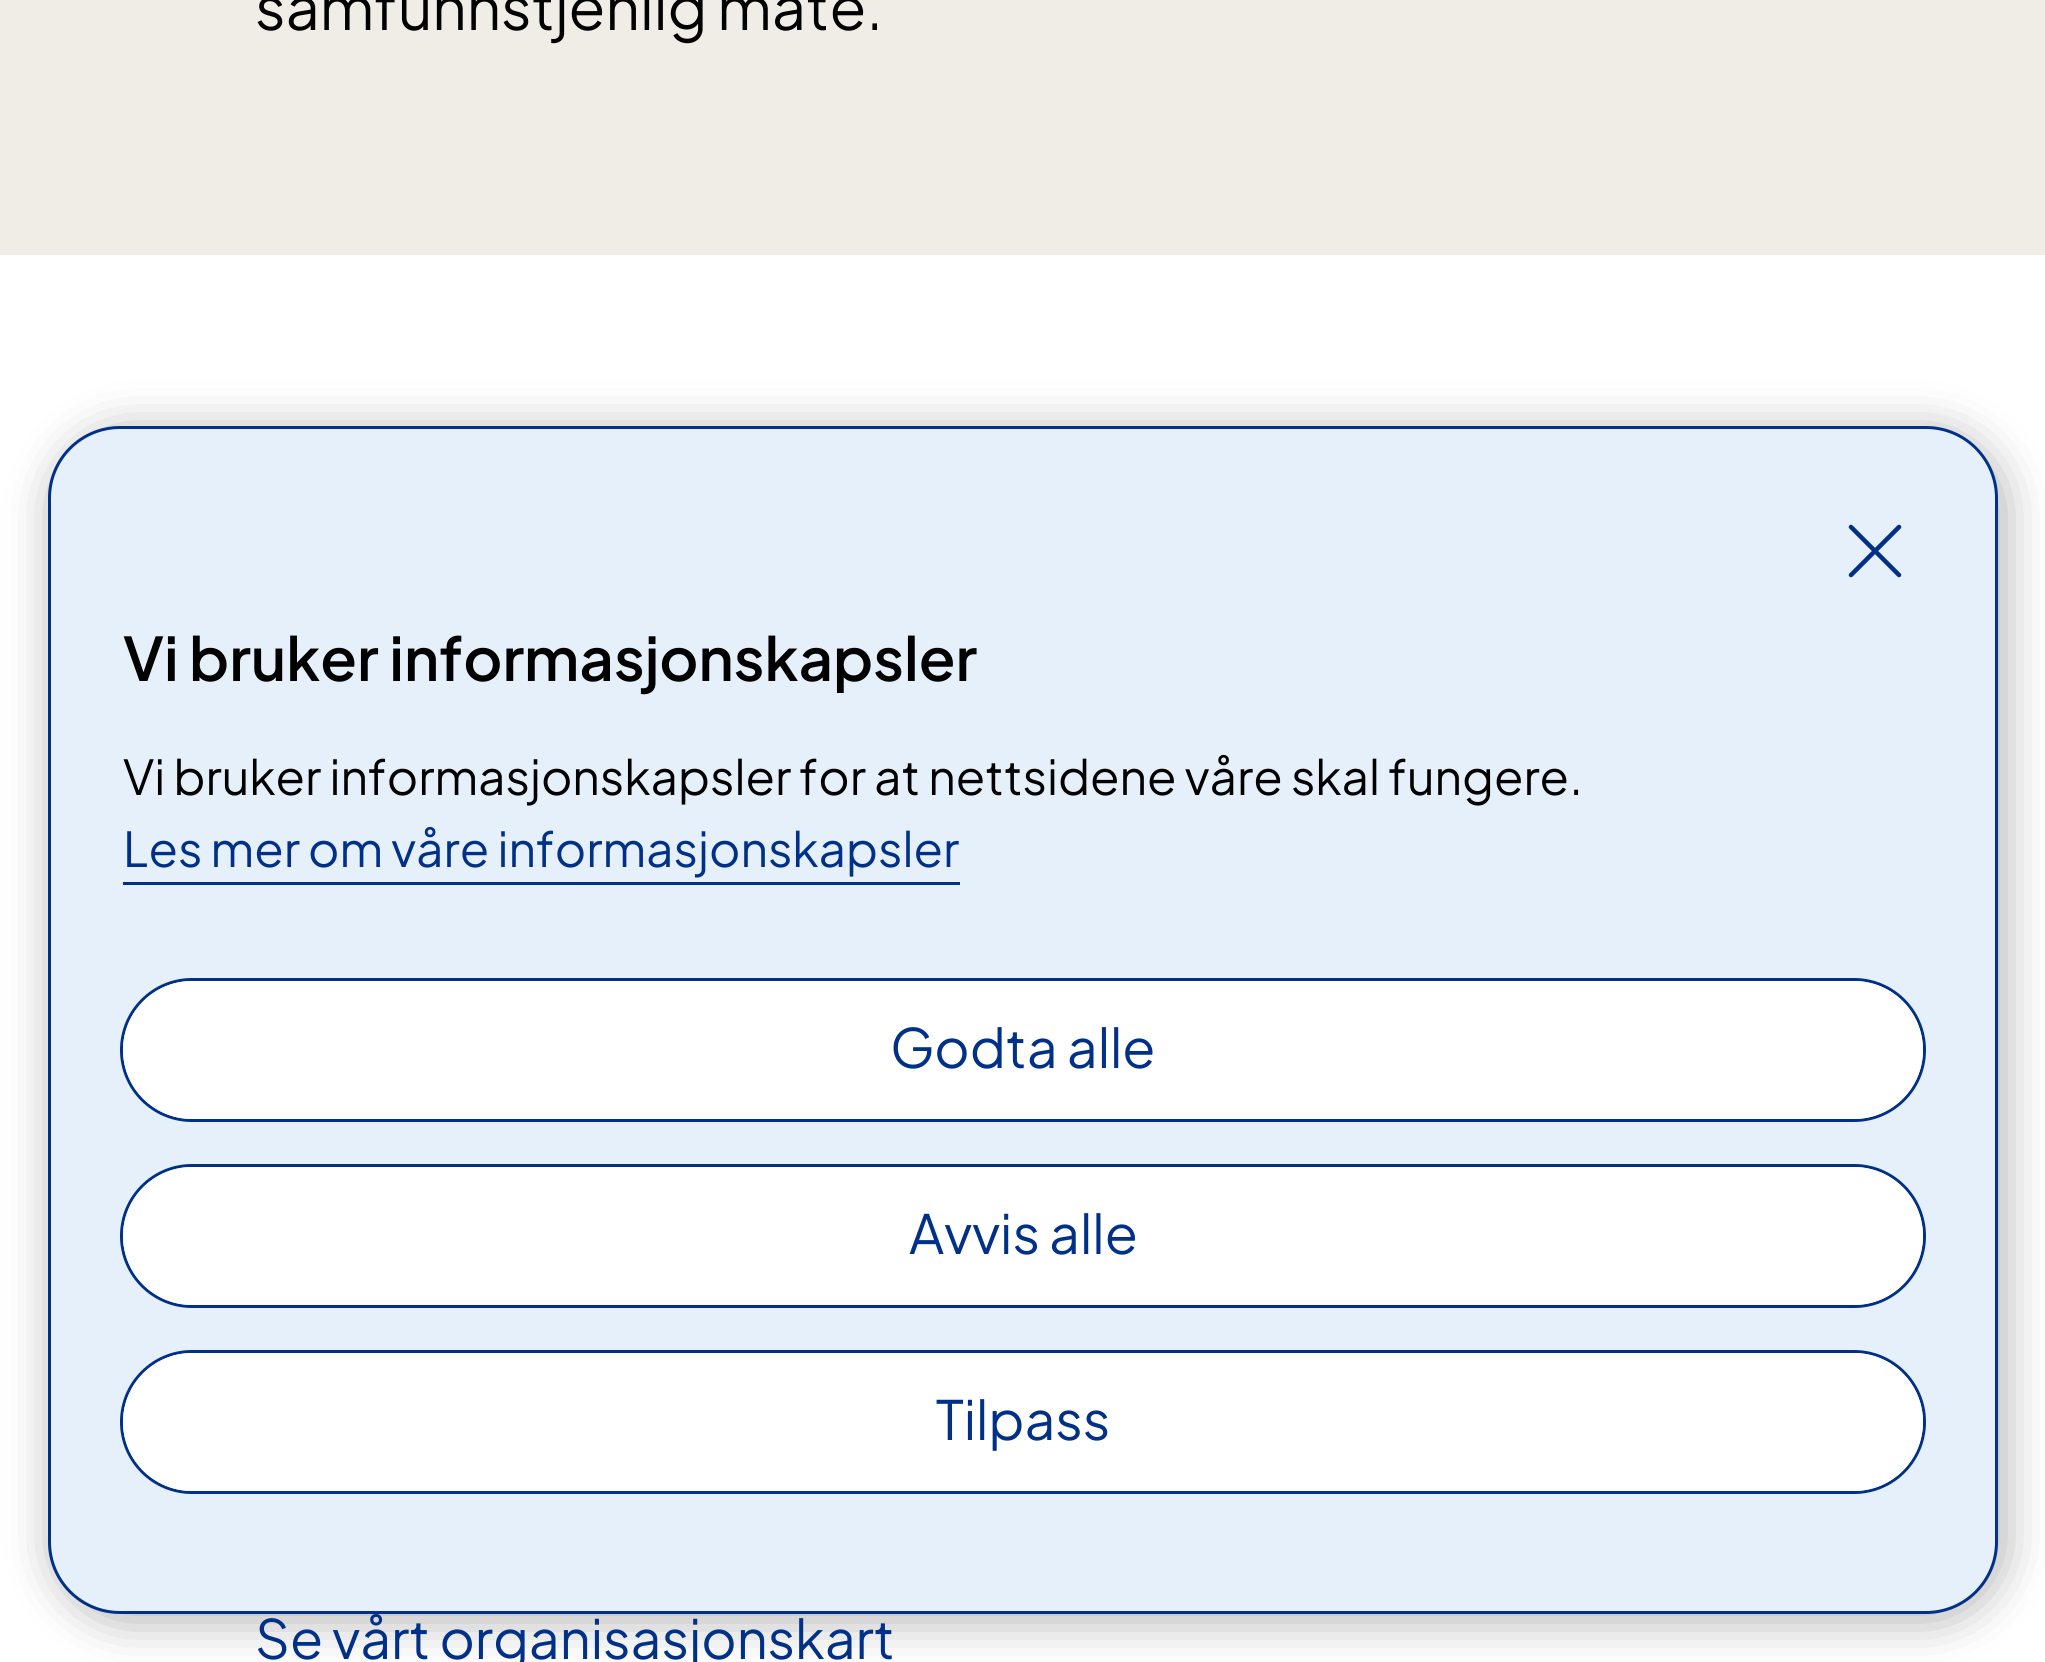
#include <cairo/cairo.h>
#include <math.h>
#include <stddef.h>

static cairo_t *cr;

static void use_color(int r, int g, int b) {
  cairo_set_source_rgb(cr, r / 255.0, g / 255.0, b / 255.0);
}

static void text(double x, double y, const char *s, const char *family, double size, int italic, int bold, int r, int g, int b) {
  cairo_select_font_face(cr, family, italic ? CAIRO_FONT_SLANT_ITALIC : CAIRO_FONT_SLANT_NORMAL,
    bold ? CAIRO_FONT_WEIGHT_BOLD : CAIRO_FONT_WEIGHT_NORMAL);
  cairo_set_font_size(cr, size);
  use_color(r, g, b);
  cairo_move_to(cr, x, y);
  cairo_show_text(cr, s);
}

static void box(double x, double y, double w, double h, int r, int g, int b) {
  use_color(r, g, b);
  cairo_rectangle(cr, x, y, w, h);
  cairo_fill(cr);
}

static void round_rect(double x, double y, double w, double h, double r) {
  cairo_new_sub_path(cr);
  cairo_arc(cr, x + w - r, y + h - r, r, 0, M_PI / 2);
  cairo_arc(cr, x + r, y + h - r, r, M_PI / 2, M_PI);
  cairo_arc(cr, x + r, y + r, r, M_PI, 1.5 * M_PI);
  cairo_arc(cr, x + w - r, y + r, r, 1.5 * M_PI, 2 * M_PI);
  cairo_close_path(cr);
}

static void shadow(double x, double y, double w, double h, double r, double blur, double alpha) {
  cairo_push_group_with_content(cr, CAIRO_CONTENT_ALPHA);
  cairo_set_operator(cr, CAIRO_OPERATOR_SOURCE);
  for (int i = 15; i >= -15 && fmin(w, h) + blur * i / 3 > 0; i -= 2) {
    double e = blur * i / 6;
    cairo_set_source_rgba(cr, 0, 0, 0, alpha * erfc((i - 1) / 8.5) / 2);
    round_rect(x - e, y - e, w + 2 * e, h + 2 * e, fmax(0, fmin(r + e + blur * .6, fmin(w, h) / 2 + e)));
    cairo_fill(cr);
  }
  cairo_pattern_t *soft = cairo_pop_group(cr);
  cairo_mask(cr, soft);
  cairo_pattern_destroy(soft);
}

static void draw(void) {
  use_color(255, 255, 255);
  cairo_paint(cr);
  box(0, 0, 2045, 255, 239, 237, 230);
  use_color(0, 0, 0);
  shadow(54, 432, 1950, 1188, 72, 24, 0.32);
  text(255, 30, "samfunnstjenlig måte.", "Plus Jakarta Sans", 60, 0, 0, 0, 0, 0);
  text(255, 1659, "Se vårt organisasjonskart", "Plus Jakarta Sans", 54, 0, 0, 0, 48, 135);
  use_color(230, 240, 250);
  round_rect(49.5, 427.5, 1947, 1185, 70.5);
  cairo_fill_preserve(cr);
  use_color(0, 48, 135);
  cairo_set_line_width(cr, 3);
  cairo_stroke(cr);
  cairo_new_path(cr);
  cairo_move_to(cr, 1851, 527);
  cairo_line_to(cr, 1899, 575);
  cairo_move_to(cr, 1851, 575);
  cairo_line_to(cr, 1899, 527);
  cairo_set_line_width(cr, 4.5);
  cairo_set_line_cap(cr, CAIRO_LINE_CAP_ROUND);
  cairo_stroke(cr);
  text(123, 681, "Vi bruker informasjonskapsler", "Plus Jakarta Sans SemiBold", 60, 0, 0, 0, 0, 0);
  text(123, 795, "Vi bruker informasjonskapsler for at nettsidene våre skal fungere.", "Plus Jakarta Sans", 48, 0, 0, 0, 0, 0);
  text(123, 867, "Les mer om våre informasjonskapsler", "Plus Jakarta Sans", 48, 0, 0, 0, 48, 135);
  box(123, 882, 837, 3, 0, 48, 135);
  round_rect(121.5, 979.5, 1803, 141, 70.5);
  cairo_set_line_width(cr, 3);
  cairo_set_line_cap(cr, CAIRO_LINE_CAP_BUTT);
  cairo_stroke(cr);
  use_color(255, 255, 255);
  round_rect(123, 981, 1800, 138, 69);
  cairo_fill(cr);
  text(890, 1068, "Godta alle", "Plus Jakarta Sans", 54, 0, 0, 0, 48, 135);
  round_rect(121.5, 1165.5, 1803, 141, 70.5);
  cairo_stroke(cr);
  use_color(255, 255, 255);
  round_rect(123, 1167, 1800, 138, 69);
  cairo_fill(cr);
  text(909, 1254, "Avvis alle", "Plus Jakarta Sans", 54, 0, 0, 0, 48, 135);
  round_rect(121.5, 1351.5, 1803, 141, 70.5);
  cairo_stroke(cr);
  use_color(255, 255, 255);
  round_rect(123, 1353, 1800, 138, 69);
  cairo_fill(cr);
  text(936, 1440, "Tilpass", "Plus Jakarta Sans", 54, 0, 0, 0, 48, 135);
}

int main(void) {
  cairo_surface_t *surface = cairo_image_surface_create(CAIRO_FORMAT_RGB24, 2045, 1662);
  cr = cairo_create(surface);
  cairo_font_options_t *options = cairo_font_options_create();
  cairo_font_options_set_hint_metrics(options, CAIRO_HINT_METRICS_OFF);
  cairo_font_options_set_hint_style(options, CAIRO_HINT_STYLE_NONE);
  cairo_set_font_options(cr, options);
  cairo_set_miter_limit(cr, 4);
  draw();
  cairo_surface_write_to_png(surface, "out.png");
  cairo_font_options_destroy(options);
  cairo_destroy(cr);
  cairo_surface_destroy(surface);
  return 0;
}
